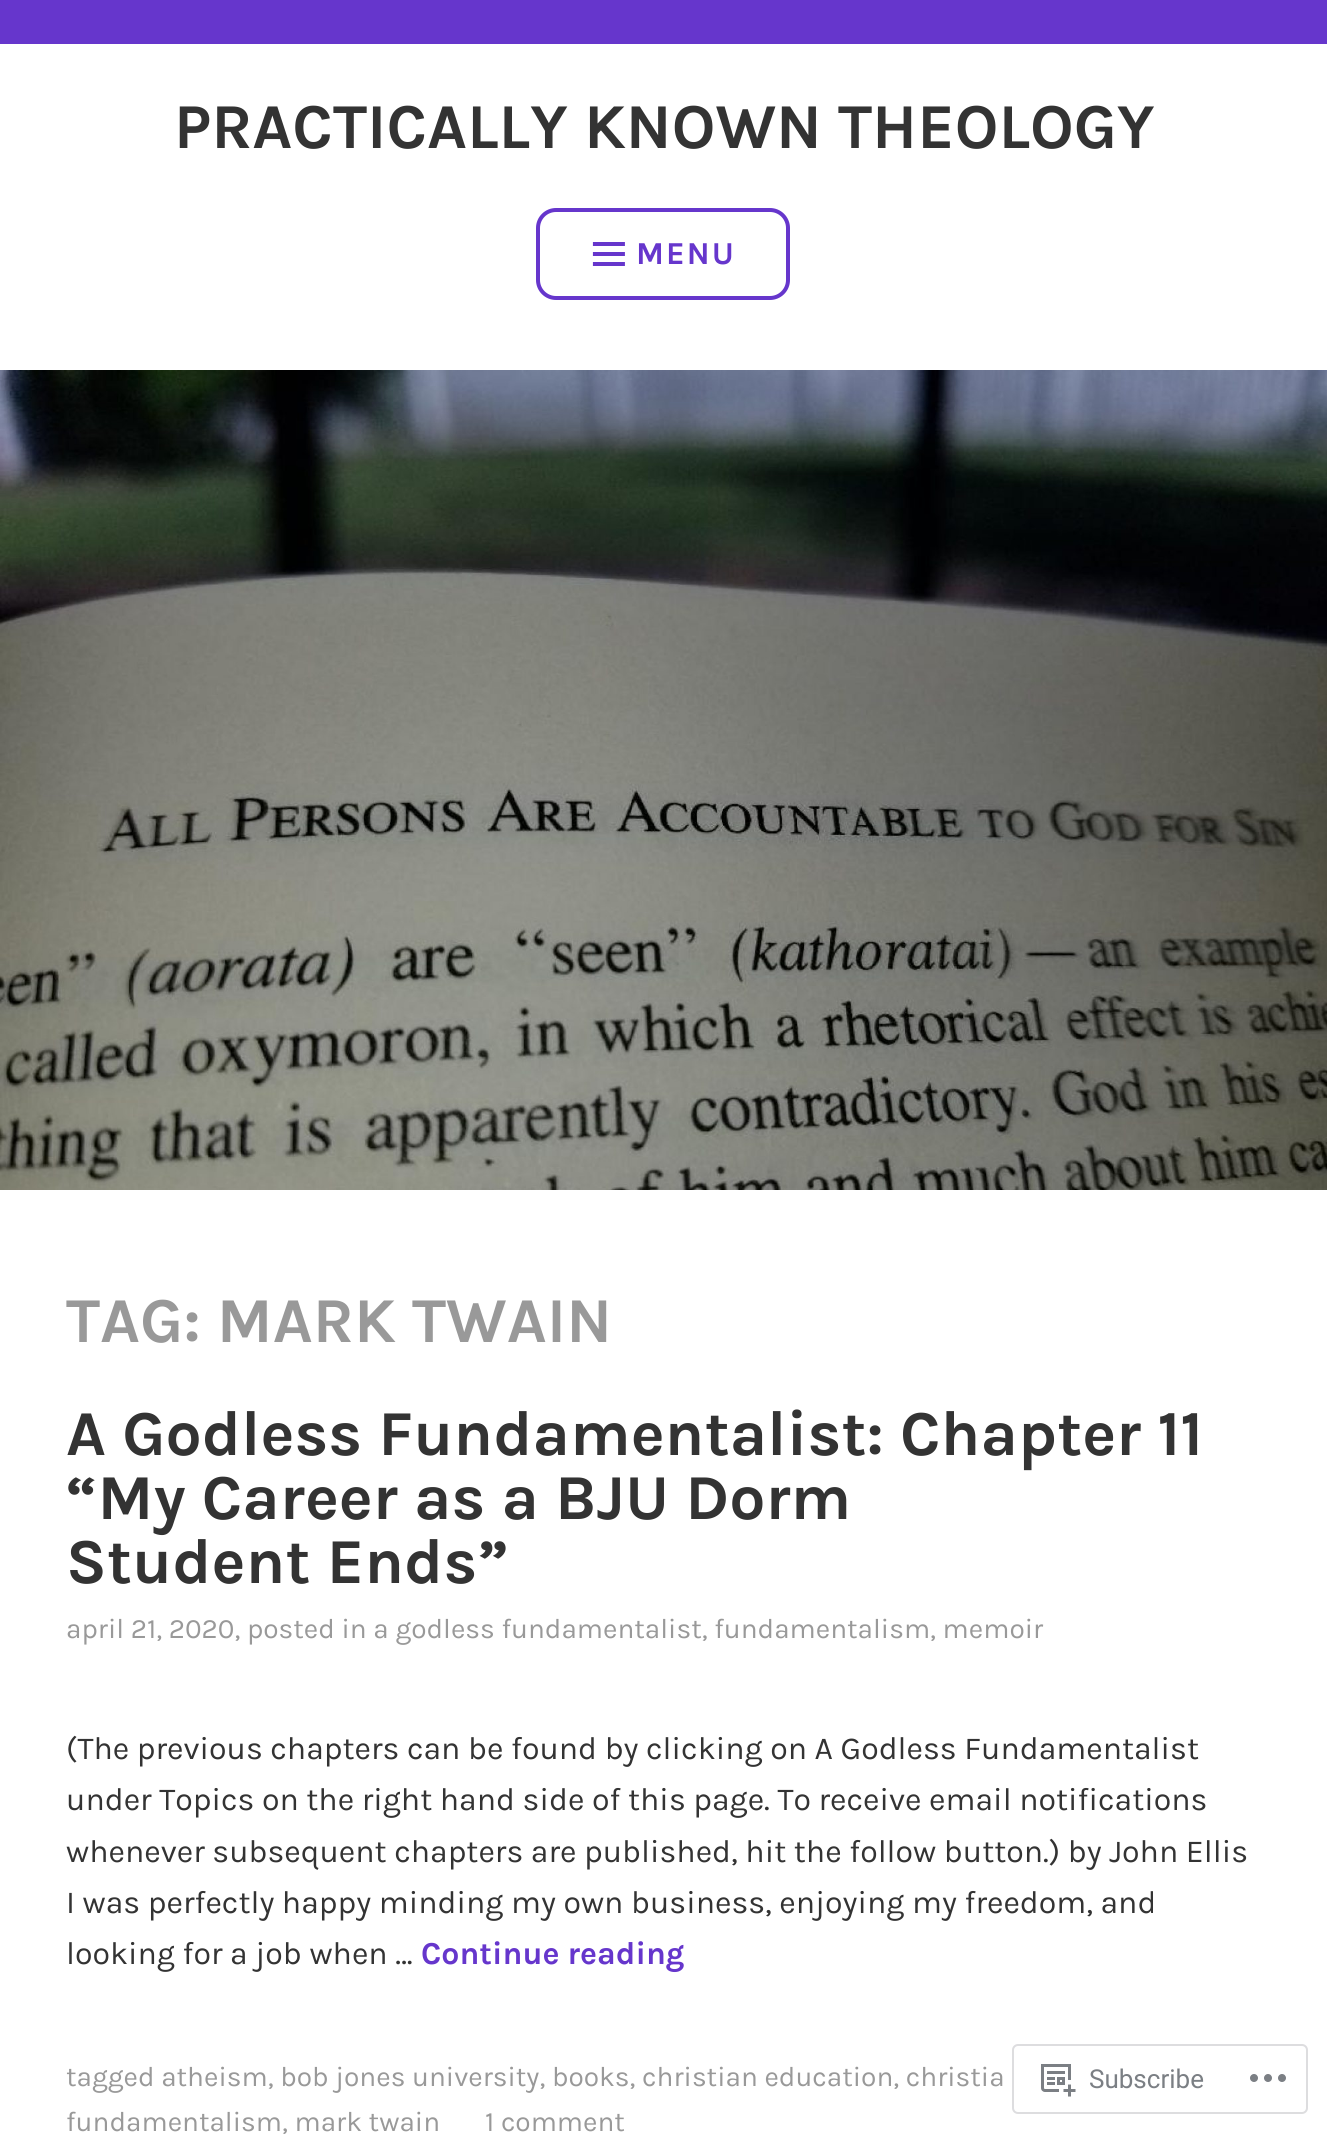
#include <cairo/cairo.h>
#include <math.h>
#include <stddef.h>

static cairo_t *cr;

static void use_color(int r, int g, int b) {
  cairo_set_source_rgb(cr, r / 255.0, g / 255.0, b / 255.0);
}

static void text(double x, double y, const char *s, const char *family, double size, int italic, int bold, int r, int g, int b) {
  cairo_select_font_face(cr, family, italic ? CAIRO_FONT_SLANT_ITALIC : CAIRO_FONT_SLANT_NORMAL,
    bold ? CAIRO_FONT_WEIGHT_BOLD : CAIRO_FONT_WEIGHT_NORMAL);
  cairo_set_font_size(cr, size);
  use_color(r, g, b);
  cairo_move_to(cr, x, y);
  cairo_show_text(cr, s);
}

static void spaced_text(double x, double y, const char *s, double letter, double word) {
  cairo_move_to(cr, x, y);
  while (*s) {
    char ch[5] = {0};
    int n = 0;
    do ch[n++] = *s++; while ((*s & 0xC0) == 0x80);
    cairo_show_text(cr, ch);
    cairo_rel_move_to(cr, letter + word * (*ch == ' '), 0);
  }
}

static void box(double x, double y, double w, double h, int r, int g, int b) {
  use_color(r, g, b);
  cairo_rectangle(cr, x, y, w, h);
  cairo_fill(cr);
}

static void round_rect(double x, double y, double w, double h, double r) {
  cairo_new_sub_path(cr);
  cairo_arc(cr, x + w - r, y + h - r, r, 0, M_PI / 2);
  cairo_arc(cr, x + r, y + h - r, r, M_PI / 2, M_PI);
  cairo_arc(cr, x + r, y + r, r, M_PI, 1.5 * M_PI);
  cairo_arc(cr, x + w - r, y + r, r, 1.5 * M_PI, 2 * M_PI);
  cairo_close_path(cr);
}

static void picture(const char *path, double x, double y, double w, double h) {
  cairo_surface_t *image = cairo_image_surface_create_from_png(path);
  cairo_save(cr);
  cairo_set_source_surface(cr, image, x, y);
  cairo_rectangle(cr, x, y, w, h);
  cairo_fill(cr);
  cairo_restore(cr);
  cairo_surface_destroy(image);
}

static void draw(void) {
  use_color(255, 255, 255);
  cairo_paint(cr);
  box(0, 0, 1327, 44, 102, 54, 204);
  round_rect(538, 210, 250, 88, 18);
  cairo_set_line_width(cr, 4);
  cairo_stroke(cr);
  picture("img_01.png", 592, 242, 33, 24);
  picture("img_02.png", 0, 370, 1327, 820);
  round_rect(1013, 2045, 294, 68, 5);
  use_color(221, 221, 223);
  cairo_set_line_width(cr, 2);
  cairo_stroke(cr);
  picture("img_03.png", 1041, 2064, 35, 33);
  picture("img_04.png", 1250, 2074, 36, 8);
  text(174, 148, "PRACTICALLY KNOWN THEOLOGY", "Karla", 64, 0, 1, 51, 51, 51);
  cairo_set_font_size(cr, 32);
  use_color(102, 54, 204);
  spaced_text(636, 264, "MENU", 2, 0);
  text(66, 1342, "TAG: MARK TWAIN", "Karla", 64, 0, 1, 153, 153, 153);
  text(66, 1455, "A Godless Fundamentalist: Chapter 11", "Karla", 64, 0, 1, 51, 51, 51);
  text(66, 1519, "“My Career as a BJU Dorm", "Karla", 64, 0, 1, 51, 51, 51);
  text(66, 1583, "Student Ends”", "Karla", 64, 0, 1, 51, 51, 51);
  text(66, 1638, "april 21, 2020, posted in a godless fundamentalist, fundamentalism, memoir", "Karla", 28, 0, 0, 153, 153, 153);
  text(66, 1759, "(The previous chapters can be found by clicking on A Godless Fundamentalist", "Karla", 32, 0, 0, 51, 51, 51);
  text(66, 1810, "under Topics on the right hand side of this page. To receive email notifications", "Karla", 32, 0, 0, 51, 51, 51);
  text(66, 1862, "whenever subsequent chapters are published, hit the follow button.) by John Ellis", "Karla", 32, 0, 0, 51, 51, 51);
  text(66, 1913, "I was perfectly happy minding my own business, enjoying my freedom, and", "Karla", 32, 0, 0, 51, 51, 51);
  text(66, 1964, "looking for a job when …", "Karla", 32, 0, 0, 51, 51, 51);
  text(421, 1964, "Continue reading", "Karla", 32, 0, 1, 102, 54, 204);
  text(66, 2086, "tagged atheism, bob jones university, books, christian education, christia", "Karla", 28, 0, 0, 153, 153, 153);
  text(66, 2131, "fundamentalism, mark twain", "Karla", 28, 0, 0, 153, 153, 153);
  text(485, 2131, "1 comment", "Karla", 28, 0, 0, 153, 153, 153);
  text(1089, 2088, "Subscribe", "Roboto", 26, 0, 0, 123, 127, 132);
}

int main(void) {
  cairo_surface_t *surface = cairo_image_surface_create(CAIRO_FORMAT_RGB24, 1327, 2134);
  cr = cairo_create(surface);
  cairo_font_options_t *options = cairo_font_options_create();
  cairo_font_options_set_hint_metrics(options, CAIRO_HINT_METRICS_OFF);
  cairo_font_options_set_hint_style(options, CAIRO_HINT_STYLE_NONE);
  cairo_set_font_options(cr, options);
  cairo_set_miter_limit(cr, 4);
  draw();
  cairo_surface_write_to_png(surface, "out.png");
  cairo_font_options_destroy(options);
  cairo_destroy(cr);
  cairo_surface_destroy(surface);
  return 0;
}
